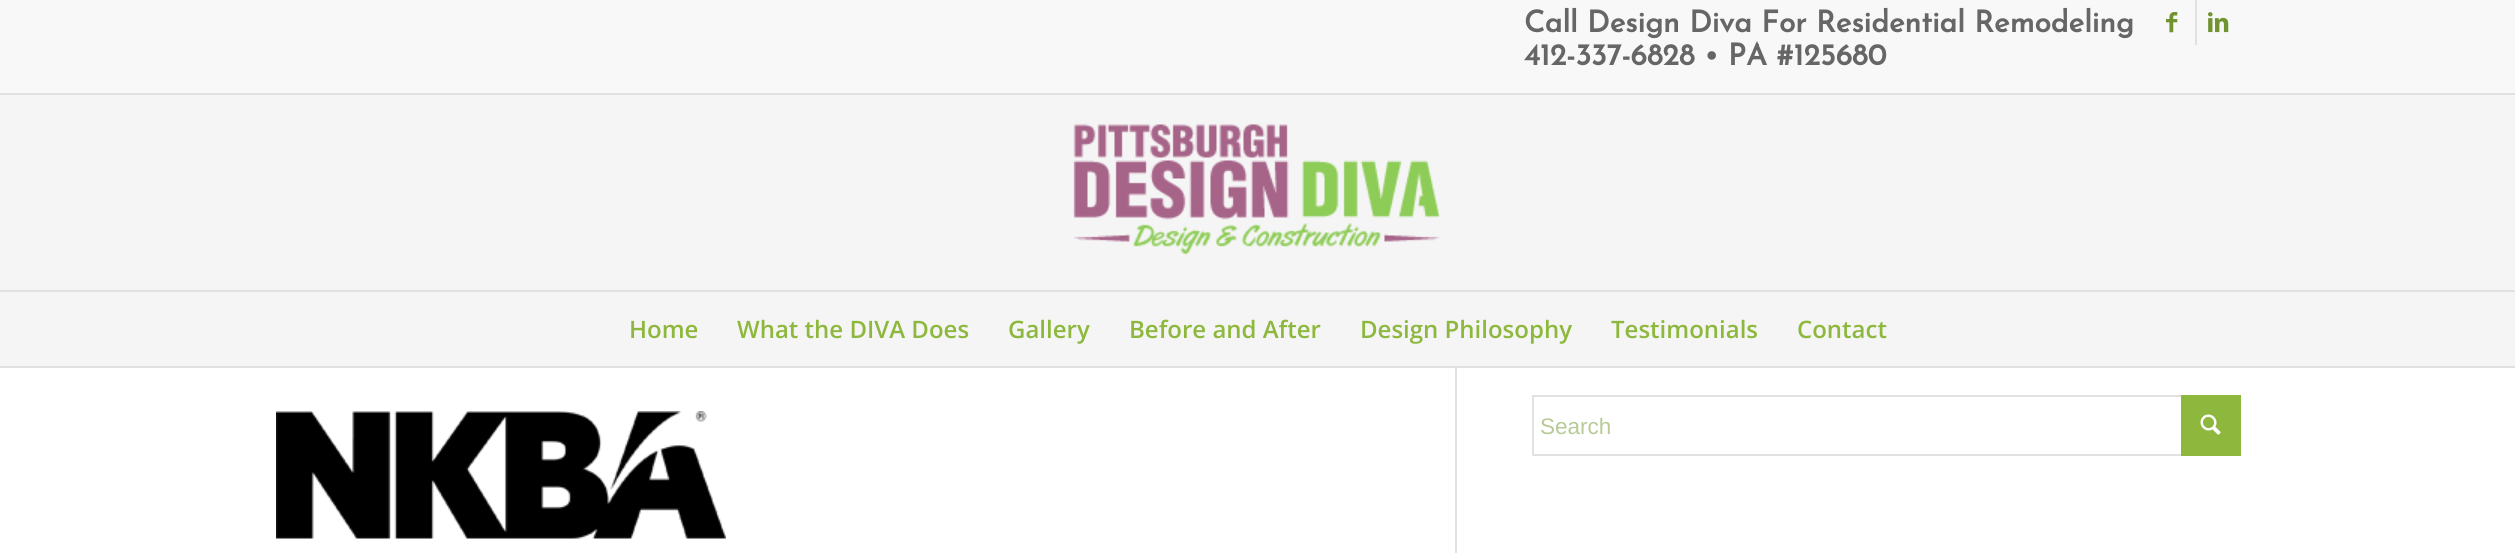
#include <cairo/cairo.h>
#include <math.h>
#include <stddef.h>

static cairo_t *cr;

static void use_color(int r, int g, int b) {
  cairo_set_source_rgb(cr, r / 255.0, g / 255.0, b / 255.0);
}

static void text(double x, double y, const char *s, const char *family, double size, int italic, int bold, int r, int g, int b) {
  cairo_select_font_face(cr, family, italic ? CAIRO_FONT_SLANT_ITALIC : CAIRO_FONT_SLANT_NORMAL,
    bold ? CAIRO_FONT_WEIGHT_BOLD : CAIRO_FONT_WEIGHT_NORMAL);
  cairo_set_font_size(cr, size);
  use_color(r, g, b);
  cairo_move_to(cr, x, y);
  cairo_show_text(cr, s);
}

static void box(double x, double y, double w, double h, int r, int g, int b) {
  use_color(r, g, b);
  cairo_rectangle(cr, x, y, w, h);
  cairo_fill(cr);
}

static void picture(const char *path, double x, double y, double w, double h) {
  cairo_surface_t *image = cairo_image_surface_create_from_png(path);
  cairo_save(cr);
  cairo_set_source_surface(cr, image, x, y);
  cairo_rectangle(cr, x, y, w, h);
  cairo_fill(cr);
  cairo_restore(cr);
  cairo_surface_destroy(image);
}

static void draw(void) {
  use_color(245, 245, 245);
  cairo_paint(cr);
  box(0, 0, 2515, 93, 248, 248, 248);
  box(0, 93, 2515, 2, 225, 225, 225);
  box(2195, 0, 2, 45, 225, 225, 225);
  picture("img_01.png", 2166, 12, 12, 21);
  picture("img_02.png", 2208, 12, 21, 21);
  box(0, 366, 2515, 2, 225, 225, 225);
  picture("img_03.png", 1073, 124, 368, 132);
  box(0, 290, 2515, 2, 225, 225, 225);
  box(0, 368, 2515, 185, 255, 255, 255);
  box(1455, 368, 2, 185, 225, 225, 225);
  picture("img_04.png", 276, 411, 450, 128);
  cairo_rectangle(cr, 1533, 396, 707, 59);
  cairo_stroke(cr);
  box(2181, 395, 60, 61, 141, 184, 61);
  picture("img_05.png", 2200, 414, 21, 21);
  text(1524, 32, "Call Design Diva For Residential Remodeling", "Josefin Sans", 30, 0, 1, 102, 102, 102);
  text(1524, 65, "412-337-6828 • PA #125680", "Josefin Sans", 30, 0, 1, 102, 102, 102);
  text(629, 338, "Home", "Open Sans SemiBold", 24, 0, 0, 141, 184, 61);
  text(737, 338, "What the DIVA Does", "Open Sans SemiBold", 24, 0, 0, 141, 184, 61);
  text(1008, 338, "Gallery", "Open Sans SemiBold", 24, 0, 0, 141, 184, 61);
  text(1129, 338, "Before and After", "Open Sans SemiBold", 24, 0, 0, 141, 184, 61);
  text(1360, 338, "Design Philosophy", "Open Sans SemiBold", 24, 0, 0, 141, 184, 61);
  text(1611, 338, "Testimonials", "Open Sans SemiBold", 24, 0, 0, 141, 184, 61);
  text(1797, 338, "Contact", "Open Sans SemiBold", 24, 0, 0, 141, 184, 61);
  text(1540, 434, "Search", "Liberation Sans", 22.5, 0, 0, 184, 202, 152);
}

int main(void) {
  cairo_surface_t *surface = cairo_image_surface_create(CAIRO_FORMAT_RGB24, 2515, 553);
  cr = cairo_create(surface);
  cairo_font_options_t *options = cairo_font_options_create();
  cairo_font_options_set_hint_metrics(options, CAIRO_HINT_METRICS_OFF);
  cairo_font_options_set_hint_style(options, CAIRO_HINT_STYLE_NONE);
  cairo_set_font_options(cr, options);
  cairo_set_miter_limit(cr, 4);
  draw();
  cairo_surface_write_to_png(surface, "out.png");
  cairo_font_options_destroy(options);
  cairo_destroy(cr);
  cairo_surface_destroy(surface);
  return 0;
}
